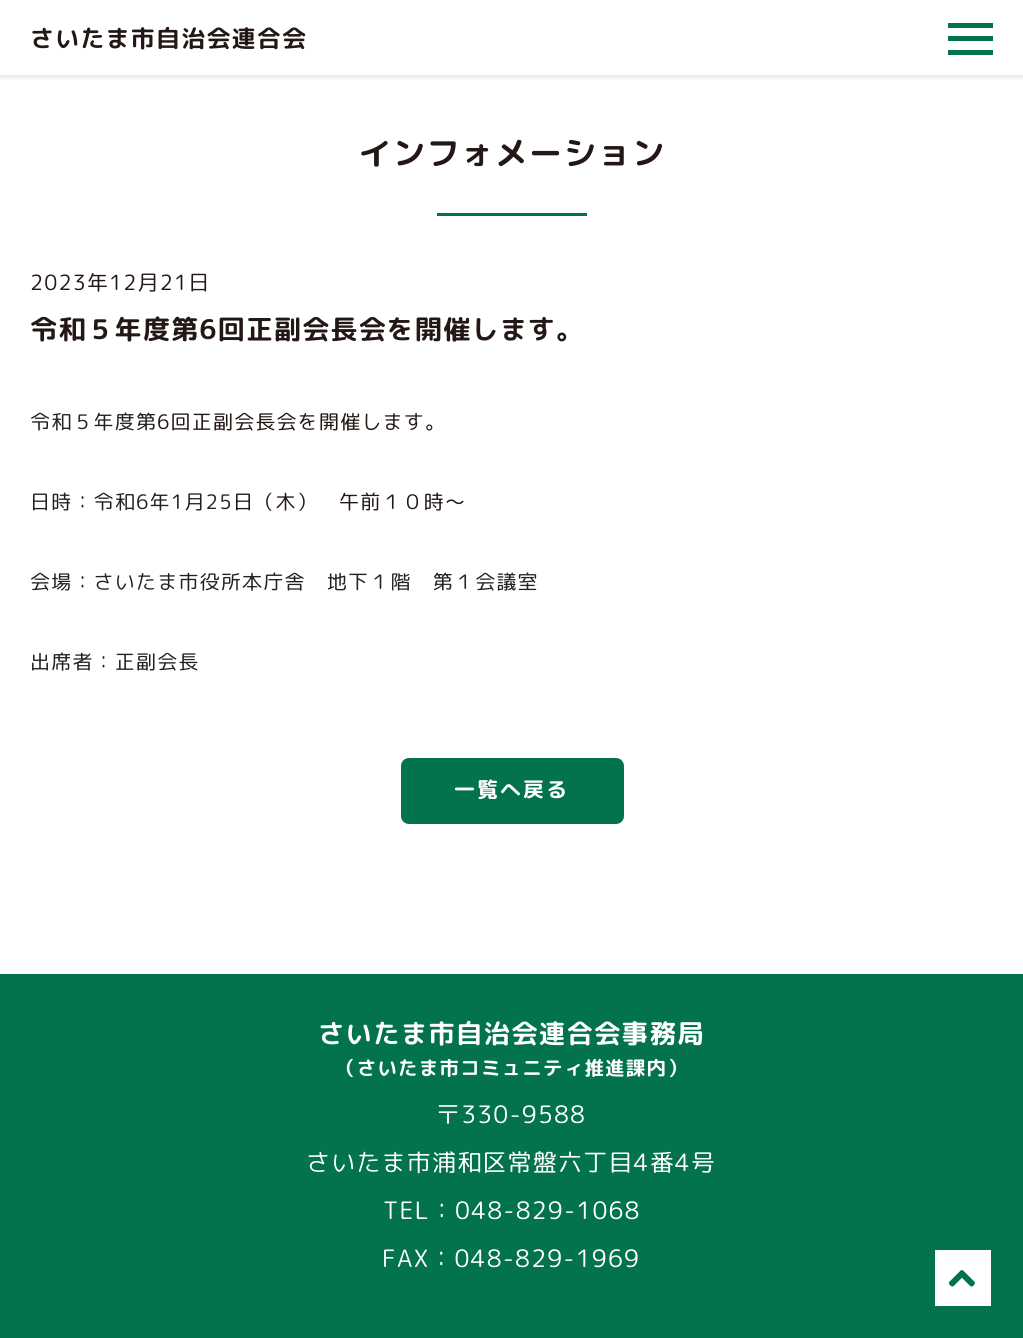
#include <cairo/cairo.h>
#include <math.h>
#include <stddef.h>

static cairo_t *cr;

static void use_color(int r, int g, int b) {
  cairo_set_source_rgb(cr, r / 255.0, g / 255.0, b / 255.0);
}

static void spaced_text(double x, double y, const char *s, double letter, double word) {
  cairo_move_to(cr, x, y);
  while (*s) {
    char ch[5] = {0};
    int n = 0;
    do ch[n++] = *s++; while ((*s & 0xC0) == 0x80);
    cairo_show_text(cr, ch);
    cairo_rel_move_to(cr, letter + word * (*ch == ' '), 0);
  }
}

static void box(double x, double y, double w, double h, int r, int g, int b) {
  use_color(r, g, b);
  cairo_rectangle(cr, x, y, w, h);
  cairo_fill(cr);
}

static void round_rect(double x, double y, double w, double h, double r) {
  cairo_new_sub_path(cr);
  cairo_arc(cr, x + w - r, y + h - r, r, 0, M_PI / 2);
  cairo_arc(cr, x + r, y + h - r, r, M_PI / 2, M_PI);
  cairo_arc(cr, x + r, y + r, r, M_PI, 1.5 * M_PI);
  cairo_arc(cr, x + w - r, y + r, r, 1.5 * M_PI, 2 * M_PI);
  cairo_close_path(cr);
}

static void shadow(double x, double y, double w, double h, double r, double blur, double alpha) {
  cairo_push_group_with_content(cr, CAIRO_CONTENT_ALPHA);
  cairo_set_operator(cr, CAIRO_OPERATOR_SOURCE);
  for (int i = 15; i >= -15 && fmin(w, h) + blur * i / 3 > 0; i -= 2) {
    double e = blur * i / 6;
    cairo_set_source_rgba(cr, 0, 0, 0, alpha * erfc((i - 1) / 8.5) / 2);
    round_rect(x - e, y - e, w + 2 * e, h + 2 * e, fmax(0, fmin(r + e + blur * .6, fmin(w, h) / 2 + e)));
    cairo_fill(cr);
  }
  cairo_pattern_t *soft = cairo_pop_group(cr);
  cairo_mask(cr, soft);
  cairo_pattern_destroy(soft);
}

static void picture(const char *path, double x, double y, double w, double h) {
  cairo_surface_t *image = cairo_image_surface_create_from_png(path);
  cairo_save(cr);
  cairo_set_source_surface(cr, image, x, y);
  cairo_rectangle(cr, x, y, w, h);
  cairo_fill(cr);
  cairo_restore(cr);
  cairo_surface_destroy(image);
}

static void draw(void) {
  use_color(255, 255, 255);
  cairo_paint(cr);
  cairo_save(cr);
  cairo_rectangle(cr, 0, 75, 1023, 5);
  cairo_clip(cr);
  use_color(0, 0, 0);
  shadow(0, 0, 1023, 75, 0, 4, 0.2);
  cairo_restore(cr);
  box(948, 23, 45, 5, 2, 115, 74);
  box(948, 36, 45, 5, 2, 115, 74);
  box(948, 50, 45, 5, 2, 115, 74);
  box(437, 213, 150, 3, 2, 115, 74);
  round_rect(402, 759, 221, 64, 7);
  cairo_fill_preserve(cr);
  cairo_stroke(cr);
  box(0, 974, 1023, 364, 2, 115, 74);
  box(935, 1250, 56, 56, 255, 255, 255);
  picture("img_01.png", 948, 1270, 27, 17);
  cairo_select_font_face(cr, "Rounded Mplus 1c Bold", CAIRO_FONT_SLANT_NORMAL, CAIRO_FONT_WEIGHT_BOLD);
  cairo_set_font_size(cr, 24);
  use_color(35, 24, 21);
  spaced_text(30, 47, "さいたま市自治会連合会", 1.2, 0);
  cairo_set_font_size(cr, 33);
  spaced_text(358, 165, "インフォメーション", 1.2, 0);
  cairo_select_font_face(cr, "Rounded Mplus 1c", CAIRO_FONT_SLANT_NORMAL, CAIRO_FONT_WEIGHT_NORMAL);
  cairo_set_font_size(cr, 21);
  spaced_text(30, 290, "2023年12月21日", 1.2, 0);
  cairo_select_font_face(cr, "Rounded Mplus 1c Bold", CAIRO_FONT_SLANT_NORMAL, CAIRO_FONT_WEIGHT_BOLD);
  cairo_set_font_size(cr, 27);
  spaced_text(30, 339, "令和５年度第6回正副会長会を開催します。", 1.2, 0);
  cairo_select_font_face(cr, "Rounded Mplus 1c", CAIRO_FONT_SLANT_NORMAL, CAIRO_FONT_WEIGHT_NORMAL);
  cairo_set_font_size(cr, 20);
  use_color(34, 34, 34);
  spaced_text(30, 429, "令和５年度第", 1.2, 0);
  use_color(35, 24, 21);
  spaced_text(157, 429, "6回正副会長会を開催します。", 1.2, 0);
  use_color(34, 34, 34);
  spaced_text(30, 509, "日時：令和6年1月25", 1.2, 0);
  use_color(35, 24, 21);
  spaced_text(233, 509, "日（木）　午前１０時～", 1.2, 0);
  use_color(34, 34, 34);
  spaced_text(30, 589, "会場：さいたま市役所本庁舎　地下１階　第１会議室", 1.2, 0);
  spaced_text(30, 669, "出席者：正副会長", 1.2, 0);
  cairo_select_font_face(cr, "Rounded Mplus 1c Bold", CAIRO_FONT_SLANT_NORMAL, CAIRO_FONT_WEIGHT_BOLD);
  cairo_set_font_size(cr, 21);
  use_color(255, 255, 255);
  spaced_text(454, 797, "一覧へ戻る", 2, 0);
  cairo_set_font_size(cr, 26.4);
  spaced_text(318, 1043, "さいたま市自治会連合会事務局", 1.2, 0);
  cairo_set_font_size(cr, 19.5);
  spaced_text(336, 1075, "（さいたま市コミュニティ推進課内）", 1.2, 0);
  cairo_select_font_face(cr, "Rounded Mplus 1c", CAIRO_FONT_SLANT_NORMAL, CAIRO_FONT_WEIGHT_NORMAL);
  cairo_set_font_size(cr, 24);
  spaced_text(436, 1123, "〒330-9588", 1.2, 0);
  spaced_text(306, 1171, "さいたま市浦和区常盤六丁目4番4号", 1.2, 0);
  spaced_text(383, 1219, "TEL：048-829-1068", 1.2, 0);
  spaced_text(382, 1267, "FAX：048-829-1969", 1.2, 0);
}

int main(void) {
  cairo_surface_t *surface = cairo_image_surface_create(CAIRO_FORMAT_RGB24, 1023, 1338);
  cr = cairo_create(surface);
  cairo_font_options_t *options = cairo_font_options_create();
  cairo_font_options_set_hint_metrics(options, CAIRO_HINT_METRICS_OFF);
  cairo_font_options_set_hint_style(options, CAIRO_HINT_STYLE_NONE);
  cairo_set_font_options(cr, options);
  cairo_set_miter_limit(cr, 4);
  draw();
  cairo_surface_write_to_png(surface, "out.png");
  cairo_font_options_destroy(options);
  cairo_destroy(cr);
  cairo_surface_destroy(surface);
  return 0;
}
